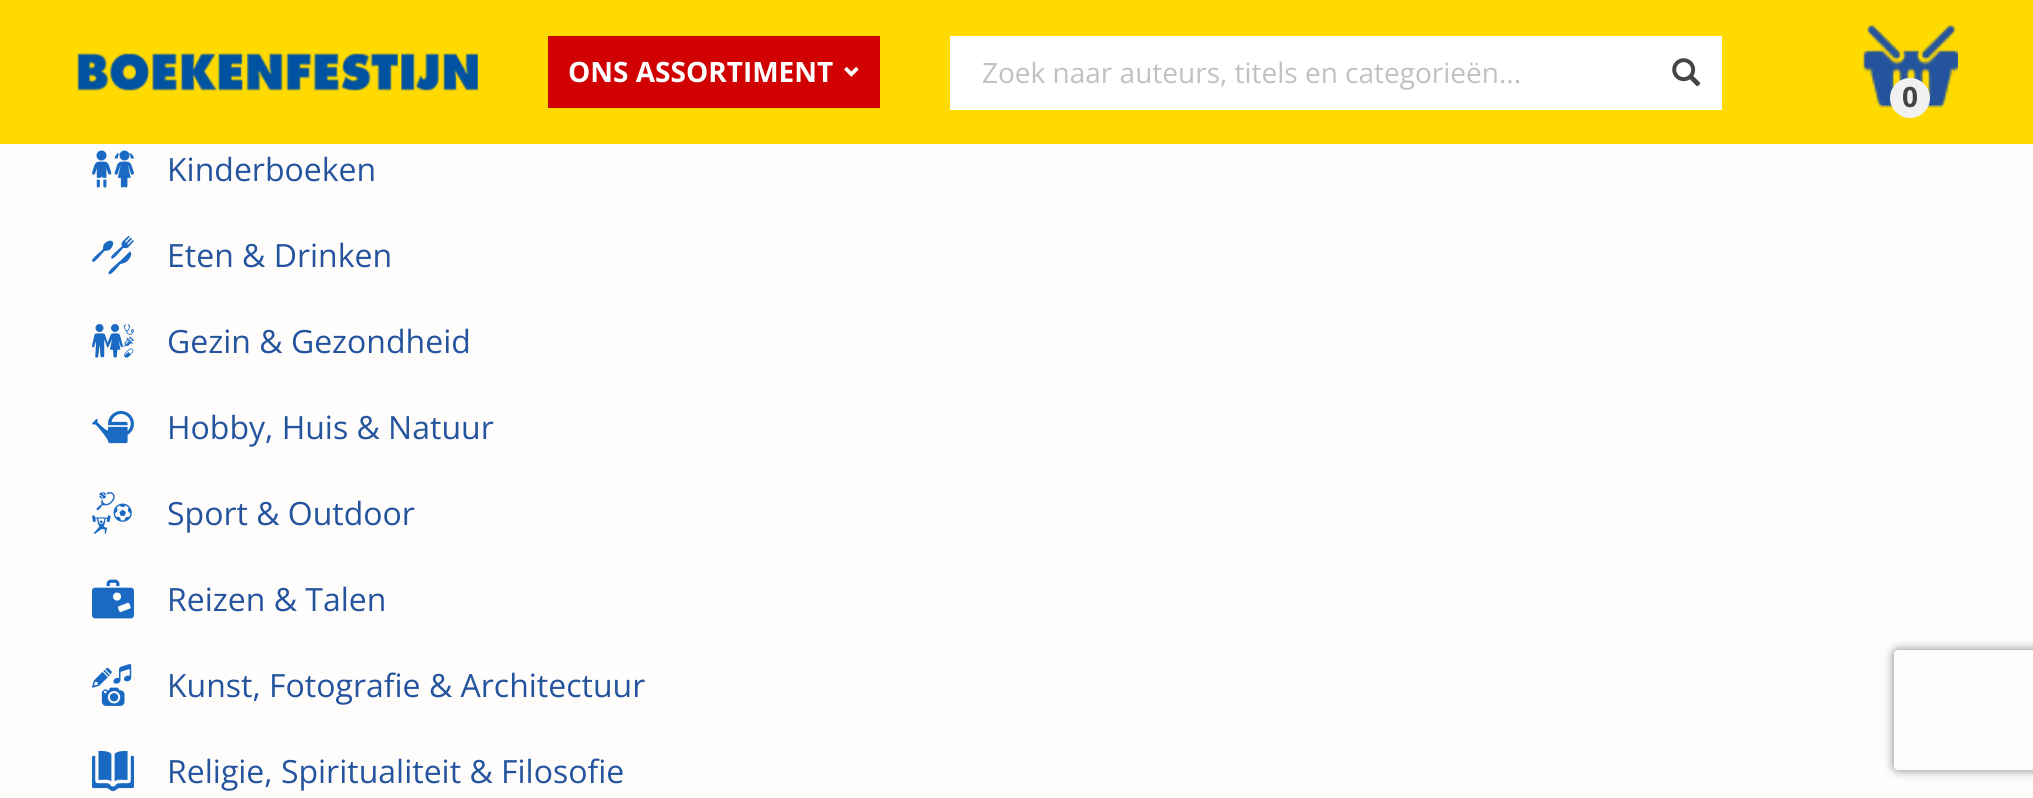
#include <cairo/cairo.h>
#include <math.h>
#include <stddef.h>

static cairo_t *cr;

static void use_color(int r, int g, int b) {
  cairo_set_source_rgb(cr, r / 255.0, g / 255.0, b / 255.0);
}

static void text(double x, double y, const char *s, const char *family, double size, int italic, int bold, int r, int g, int b) {
  cairo_select_font_face(cr, family, italic ? CAIRO_FONT_SLANT_ITALIC : CAIRO_FONT_SLANT_NORMAL,
    bold ? CAIRO_FONT_WEIGHT_BOLD : CAIRO_FONT_WEIGHT_NORMAL);
  cairo_set_font_size(cr, size);
  use_color(r, g, b);
  cairo_move_to(cr, x, y);
  cairo_show_text(cr, s);
}

static void box(double x, double y, double w, double h, int r, int g, int b) {
  use_color(r, g, b);
  cairo_rectangle(cr, x, y, w, h);
  cairo_fill(cr);
}

static void round_rect(double x, double y, double w, double h, double r) {
  cairo_new_sub_path(cr);
  cairo_arc(cr, x + w - r, y + h - r, r, 0, M_PI / 2);
  cairo_arc(cr, x + r, y + h - r, r, M_PI / 2, M_PI);
  cairo_arc(cr, x + r, y + r, r, M_PI, 1.5 * M_PI);
  cairo_arc(cr, x + w - r, y + r, r, 1.5 * M_PI, 2 * M_PI);
  cairo_close_path(cr);
}

static void shadow(double x, double y, double w, double h, double r, double blur, double alpha) {
  cairo_push_group_with_content(cr, CAIRO_CONTENT_ALPHA);
  cairo_set_operator(cr, CAIRO_OPERATOR_SOURCE);
  for (int i = 15; i >= -15 && fmin(w, h) + blur * i / 3 > 0; i -= 2) {
    double e = blur * i / 6;
    cairo_set_source_rgba(cr, 0, 0, 0, alpha * erfc((i - 1) / 8.5) / 2);
    round_rect(x - e, y - e, w + 2 * e, h + 2 * e, fmax(0, fmin(r + e + blur * .6, fmin(w, h) / 2 + e)));
    cairo_fill(cr);
  }
  cairo_pattern_t *soft = cairo_pop_group(cr);
  cairo_mask(cr, soft);
  cairo_pattern_destroy(soft);
}

static void picture(const char *path, double x, double y, double w, double h) {
  cairo_surface_t *image = cairo_image_surface_create_from_png(path);
  cairo_save(cr);
  cairo_set_source_surface(cr, image, x, y);
  cairo_rectangle(cr, x, y, w, h);
  cairo_fill(cr);
  cairo_restore(cr);
  cairo_surface_destroy(image);
}

static void draw(void) {
  use_color(255, 253, 252);
  cairo_paint(cr);
  box(0, 0, 2033, 144, 255, 218, 1);
  picture("img_01.png", 77, 53, 401, 38);
  box(548, 36, 332, 72, 209, 1, 1);
  picture("img_02.png", 844, 66, 15, 11);
  box(950, 36, 772, 74, 255, 255, 255);
  picture("img_03.png", 1672, 58, 29, 29);
  picture("img_04.png", 1862, 24, 96, 84);
  use_color(241, 241, 241);
  cairo_arc(cr, 1910, 98, 20, 0, 2 * M_PI);
  cairo_fill(cr);
  picture("img_05.png", 92, 150, 42, 38);
  picture("img_06.png", 92, 235, 42, 40);
  picture("img_07.png", 92, 324, 42, 34);
  picture("img_08.png", 92, 410, 42, 34);
  picture("img_09.png", 92, 492, 40, 42);
  picture("img_10.png", 92, 579, 42, 40);
  picture("img_11.png", 92, 664, 40, 42);
  picture("img_12.png", 92, 750, 42, 42);
  cairo_save(cr);
  cairo_set_fill_rule(cr, CAIRO_FILL_RULE_EVEN_ODD);
  cairo_new_path(cr);
  cairo_move_to(cr, 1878, 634);
  cairo_line_to(cr, 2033, 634);
  cairo_line_to(cr, 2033, 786);
  cairo_line_to(cr, 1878, 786);
  cairo_close_path(cr);
  cairo_move_to(cr, 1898, 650);
  cairo_line_to(cr, 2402, 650);
  cairo_curve_to(cr, 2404, 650, 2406, 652, 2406, 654);
  cairo_line_to(cr, 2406, 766);
  cairo_curve_to(cr, 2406, 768, 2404, 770, 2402, 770);
  cairo_line_to(cr, 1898, 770);
  cairo_curve_to(cr, 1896, 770, 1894, 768, 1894, 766);
  cairo_line_to(cr, 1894, 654);
  cairo_curve_to(cr, 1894, 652, 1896, 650, 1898, 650);
  cairo_close_path(cr);
  cairo_clip(cr);
  use_color(128, 128, 128);
  shadow(1894, 650, 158, 120, 4, 5, 1);
  cairo_restore(cr);
  text(568, 82, "ONS ASSORTIMENT", "Open Sans", 28, 0, 1, 255, 255, 255);
  text(982, 83, "Zoek naar auteurs, titels en categorieën...", "Open Sans", 28, 0, 0, 193, 193, 193);
  text(1902, 107, "0", "Open Sans", 28, 0, 1, 68, 68, 68);
  text(167, 181, "Kinderboeken", "Open Sans", 32, 0, 0, 36, 84, 158);
  text(167, 267, "Eten & Drinken", "Open Sans", 32, 0, 0, 36, 84, 158);
  text(167, 353, "Gezin & Gezondheid", "Open Sans", 32, 0, 0, 36, 84, 158);
  text(167, 439, "Hobby, Huis & Natuur", "Open Sans", 32, 0, 0, 36, 84, 158);
  text(167, 525, "Sport & Outdoor", "Open Sans", 32, 0, 0, 36, 84, 158);
  text(167, 611, "Reizen & Talen", "Open Sans", 32, 0, 0, 36, 84, 158);
  text(167, 697, "Kunst, Fotografie & Architectuur", "Open Sans", 32, 0, 0, 36, 84, 158);
  text(167, 783, "Religie, Spiritualiteit & Filosofie", "Open Sans", 32, 0, 0, 36, 84, 158);
}

int main(void) {
  cairo_surface_t *surface = cairo_image_surface_create(CAIRO_FORMAT_RGB24, 2033, 798);
  cr = cairo_create(surface);
  cairo_font_options_t *options = cairo_font_options_create();
  cairo_font_options_set_hint_metrics(options, CAIRO_HINT_METRICS_OFF);
  cairo_font_options_set_hint_style(options, CAIRO_HINT_STYLE_NONE);
  cairo_set_font_options(cr, options);
  cairo_set_miter_limit(cr, 4);
  draw();
  cairo_surface_write_to_png(surface, "out.png");
  cairo_font_options_destroy(options);
  cairo_destroy(cr);
  cairo_surface_destroy(surface);
  return 0;
}
